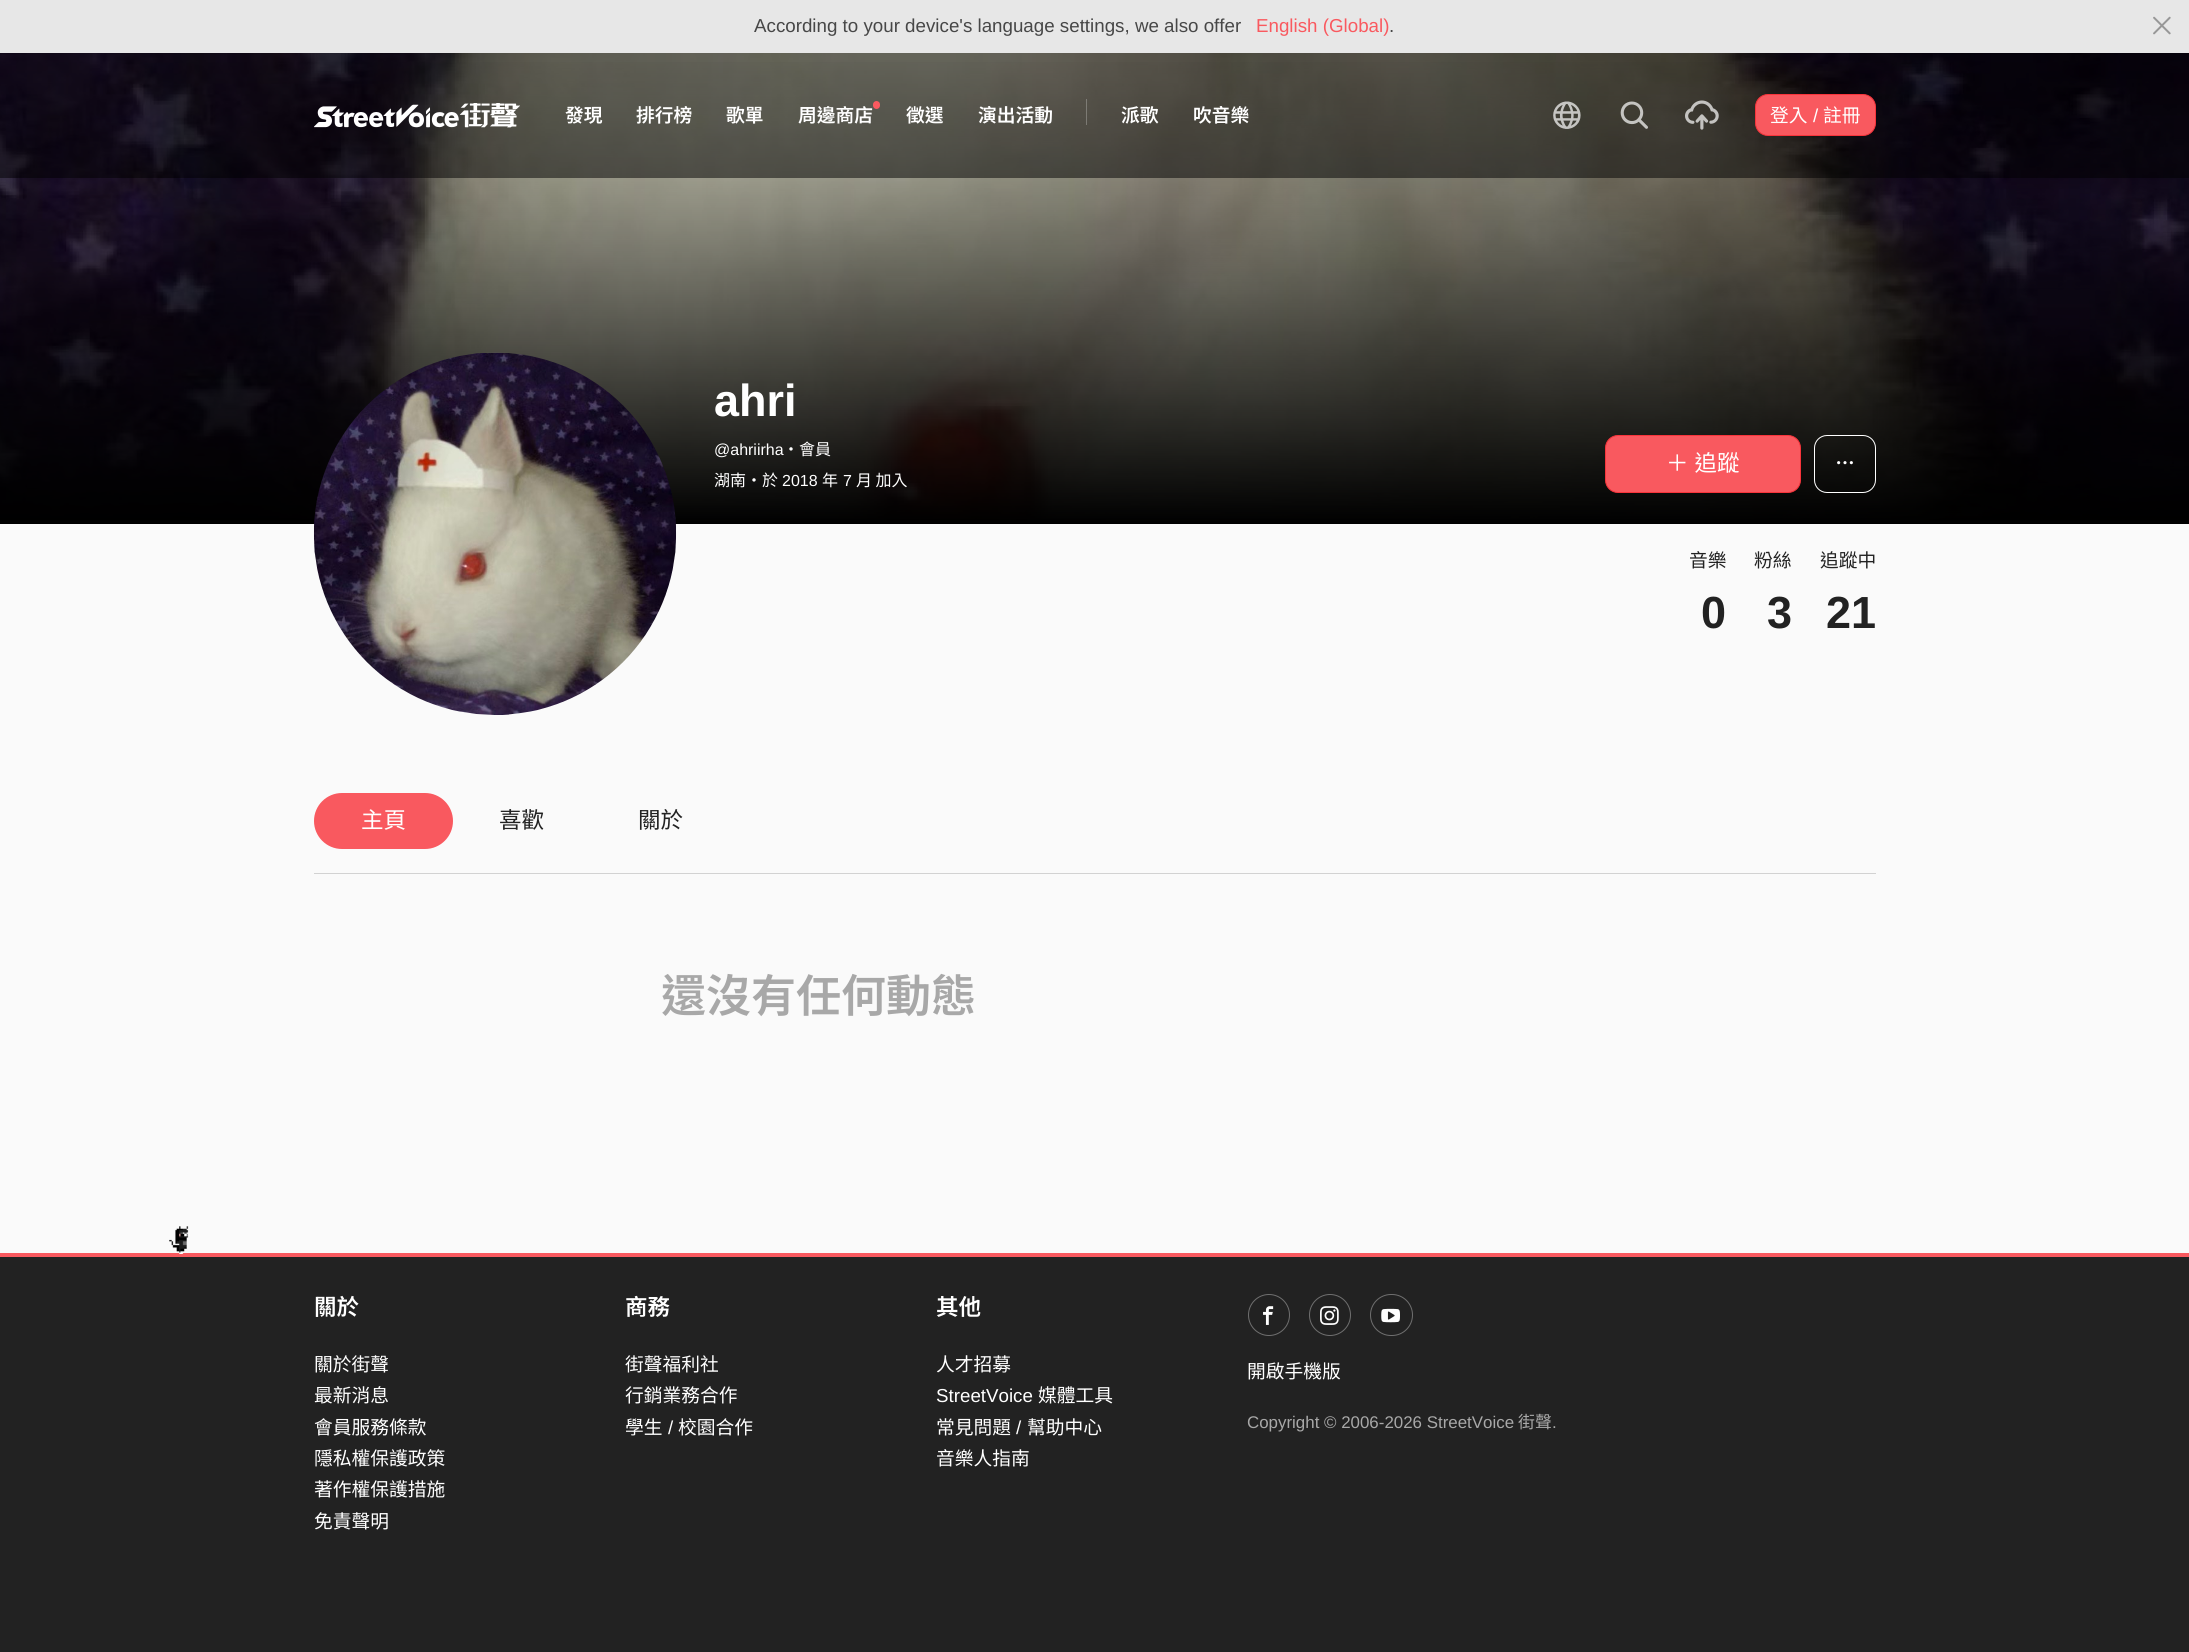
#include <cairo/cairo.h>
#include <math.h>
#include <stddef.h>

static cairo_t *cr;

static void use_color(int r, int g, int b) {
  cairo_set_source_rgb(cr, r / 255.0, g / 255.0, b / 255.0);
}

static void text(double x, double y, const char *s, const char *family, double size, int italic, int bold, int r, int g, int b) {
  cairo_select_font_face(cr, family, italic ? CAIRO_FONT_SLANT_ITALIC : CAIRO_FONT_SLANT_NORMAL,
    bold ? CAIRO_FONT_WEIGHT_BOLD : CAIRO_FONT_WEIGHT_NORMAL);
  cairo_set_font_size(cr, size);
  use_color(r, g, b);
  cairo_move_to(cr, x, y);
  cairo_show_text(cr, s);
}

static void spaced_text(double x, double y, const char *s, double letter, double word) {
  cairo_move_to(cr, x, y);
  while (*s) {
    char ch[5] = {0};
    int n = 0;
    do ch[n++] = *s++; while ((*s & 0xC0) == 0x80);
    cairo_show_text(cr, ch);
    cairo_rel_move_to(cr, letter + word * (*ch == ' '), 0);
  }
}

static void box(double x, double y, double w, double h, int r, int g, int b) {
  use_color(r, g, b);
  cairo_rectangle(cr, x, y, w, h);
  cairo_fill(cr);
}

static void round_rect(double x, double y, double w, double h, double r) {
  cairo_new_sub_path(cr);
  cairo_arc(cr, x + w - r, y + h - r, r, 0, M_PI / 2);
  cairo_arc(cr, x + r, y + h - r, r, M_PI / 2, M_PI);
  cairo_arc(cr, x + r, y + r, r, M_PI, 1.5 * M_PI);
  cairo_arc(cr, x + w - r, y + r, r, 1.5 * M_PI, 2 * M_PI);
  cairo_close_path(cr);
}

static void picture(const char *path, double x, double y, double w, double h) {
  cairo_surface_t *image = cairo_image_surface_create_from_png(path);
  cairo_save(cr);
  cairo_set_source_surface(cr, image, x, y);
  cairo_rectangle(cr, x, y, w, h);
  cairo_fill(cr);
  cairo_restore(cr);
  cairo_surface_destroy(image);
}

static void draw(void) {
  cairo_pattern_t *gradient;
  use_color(250, 250, 250);
  cairo_paint(cr);
  box(0, 0, 2189, 53, 231, 231, 231);
  picture("img_01.png", 2153, 16, 18, 19);
  picture("img_06.png", 0, 53, 2189, 468);
  gradient = cairo_pattern_create_linear(1095, 52, 1095, 524);
  cairo_pattern_add_color_stop_rgba(gradient, 0, 0, 0, 0, 0);
  cairo_pattern_add_color_stop_rgba(gradient, 1, 0, 0, 0, 1);
  cairo_set_source(cr, gradient);
  cairo_pattern_destroy(gradient);
  cairo_rectangle(cr, 0, 62, 2189, 462);
  cairo_fill(cr);
  cairo_set_source_rgba(cr, 0, 0, 0, 0.5);
  cairo_rectangle(cr, 0, 53, 2189, 125);
  cairo_fill(cr);
  picture("img_02.png", 314, 103, 206, 25);
  use_color(249, 89, 95);
  round_rect(873, 101, 7, 8, 3.5);
  cairo_fill(cr);
  cairo_set_source_rgba(cr, 1, 1, 1, 0.25);
  cairo_rectangle(cr, 1086, 99, 1, 26);
  cairo_fill(cr);
  picture("img_03.png", 1553, 101, 28, 28);
  picture("img_04.png", 1620, 101, 28, 28);
  picture("img_05.png", 1685, 100, 34, 30);
  use_color(249, 89, 95);
  round_rect(1755.5, 94.5, 120, 41, 12.5);
  cairo_fill_preserve(cr);
  use_color(248, 52, 59);
  cairo_set_line_width(cr, 1);
  cairo_stroke(cr);
  picture("img_07.png", 313, 352, 364, 363);
  use_color(249, 89, 95);
  round_rect(1605.5, 435.5, 195, 57, 12.5);
  cairo_fill_preserve(cr);
  use_color(248, 52, 59);
  cairo_stroke(cr);
  round_rect(1814.5, 435.5, 61, 57, 12.5);
  use_color(255, 255, 255);
  cairo_stroke(cr);
  picture("img_08.png", 1837, 461, 16, 4);
  use_color(249, 89, 95);
  round_rect(314, 793, 139, 56, 28);
  cairo_fill(cr);
  box(314, 873, 1562, 1, 210, 210, 210);
  box(0, 1257, 2189, 395, 34, 34, 34);
  box(0, 1253, 2189, 4, 249, 89, 95);
  picture("img_09.png", 169, 1226, 21, 28);
  cairo_arc(cr, 1269, 1315, 20.5, 0, 2 * M_PI);
  use_color(111, 111, 111);
  cairo_stroke(cr);
  picture("img_10.png", 1263, 1306, 11, 19);
  cairo_arc(cr, 1330, 1315, 20.5, 0, 2 * M_PI);
  cairo_stroke(cr);
  picture("img_11.png", 1320, 1306, 19, 19);
  round_rect(1370.5, 1294.5, 42, 41, 20.5);
  cairo_stroke(cr);
  picture("img_12.png", 1381, 1308, 19, 15);
  text(754, 32, "According to your device's language settings, we also offer", "Liberation Sans", 18.75, 0, 0, 71, 71, 71);
  text(1256, 32, "English (Global)", "Liberation Sans", 18.75, 0, 0, 249, 89, 95);
  text(1389, 32, ".", "Liberation Sans", 18.75, 0, 0, 71, 71, 71);
  text(565, 122, "發現", "Noto Sans TC SemiBold", 18.75, 0, 0, 255, 255, 255);
  text(636, 122, "排行榜", "Noto Sans TC SemiBold", 18.75, 0, 0, 255, 255, 255);
  text(726, 122, "歌單", "Noto Sans TC SemiBold", 18.75, 0, 0, 255, 255, 255);
  text(798, 122, "周邊商店", "Noto Sans TC SemiBold", 18.75, 0, 0, 255, 255, 255);
  text(906, 122, "徵選", "Noto Sans TC SemiBold", 18.75, 0, 0, 255, 255, 255);
  text(978, 122, "演出活動", "Noto Sans TC SemiBold", 18.75, 0, 0, 255, 255, 255);
  text(1121, 122, "派歌", "Noto Sans TC SemiBold", 18.75, 0, 0, 255, 255, 255);
  text(1193, 122, "吹音樂", "Noto Sans TC SemiBold", 18.75, 0, 0, 255, 255, 255);
  text(1770, 122, "登入", "Noto Sans TC", 18.75, 0, 0, 255, 255, 255);
  text(1813, 122, "/", "Liberation Sans", 18.75, 0, 0, 255, 255, 255);
  text(1823, 122, "註冊", "Noto Sans TC", 18.75, 0, 0, 255, 255, 255);
  text(714, 416, "ahri", "Liberation Sans", 45, 0, 1, 255, 255, 255);
  text(714, 455, "@ahriirha", "Liberation Sans", 16, 0, 0, 255, 255, 255);
  text(783, 455, "・會員", "Noto Sans TC", 16, 0, 0, 255, 255, 255);
  text(714, 486, "湖南・於", "Noto Sans TC", 16, 0, 0, 255, 255, 255);
  text(782, 486, "2018", "Liberation Sans", 16, 0, 0, 255, 255, 255);
  text(822, 486, "年", "Noto Sans TC", 16, 0, 0, 255, 255, 255);
  text(843, 486, "7", "Liberation Sans", 16, 0, 0, 255, 255, 255);
  text(856, 486, "月 加入", "Noto Sans TC", 16, 0, 0, 255, 255, 255);
  cairo_set_font_size(cr, 22.5);
  spaced_text(1666, 471, "＋ 追蹤", 0, 1);
  text(1689, 567, "音樂", "Noto Sans TC", 18.75, 0, 0, 34, 34, 34);
  text(1701, 628, "0", "Liberation Sans", 45, 0, 1, 34, 34, 34);
  text(1754, 567, "粉絲", "Noto Sans TC", 18.75, 0, 0, 34, 34, 34);
  text(1767, 628, "3", "Liberation Sans", 45, 0, 1, 34, 34, 34);
  text(1820, 567, "追蹤中", "Noto Sans TC", 18.75, 0, 0, 34, 34, 34);
  text(1826, 628, "21", "Liberation Sans", 45, 0, 1, 34, 34, 34);
  text(361, 828, "主頁", "Noto Sans TC", 22.5, 0, 0, 255, 255, 255);
  text(499, 828, "喜歡", "Noto Sans TC", 22.5, 0, 0, 34, 34, 34);
  text(638, 828, "關於", "Noto Sans TC", 22.5, 0, 0, 34, 34, 34);
  text(661, 1012, "還沒有任何動態", "Noto Sans TC SemiBold", 45, 0, 0, 168, 168, 168);
  text(314, 1315, "關於", "Noto Sans TC SemiBold", 22.5, 0, 0, 255, 255, 255);
  text(314, 1371, "關於街聲", "Noto Sans TC", 18.75, 0, 0, 255, 255, 255);
  text(314, 1402, "最新消息", "Noto Sans TC", 18.75, 0, 0, 255, 255, 255);
  text(314, 1434, "會員服務條款", "Noto Sans TC", 18.75, 0, 0, 255, 255, 255);
  text(314, 1465, "隱私權保護政策", "Noto Sans TC", 18.75, 0, 0, 255, 255, 255);
  text(314, 1496, "著作權保護措施", "Noto Sans TC", 18.75, 0, 0, 255, 255, 255);
  text(314, 1528, "免責聲明", "Noto Sans TC", 18.75, 0, 0, 255, 255, 255);
  text(625, 1315, "商務", "Noto Sans TC SemiBold", 22.5, 0, 0, 255, 255, 255);
  text(625, 1371, "街聲福利社", "Noto Sans TC", 18.75, 0, 0, 255, 255, 255);
  text(625, 1402, "行銷業務合作", "Noto Sans TC", 18.75, 0, 0, 255, 255, 255);
  text(625, 1434, "學生", "Noto Sans TC", 18.75, 0, 0, 255, 255, 255);
  text(668, 1434, "/", "Liberation Sans", 18.75, 0, 0, 255, 255, 255);
  text(678, 1434, "校園合作", "Noto Sans TC", 18.75, 0, 0, 255, 255, 255);
  text(936, 1315, "其他", "Noto Sans TC SemiBold", 22.5, 0, 0, 255, 255, 255);
  text(936, 1371, "人才招募", "Noto Sans TC", 18.75, 0, 0, 255, 255, 255);
  text(936, 1402, "StreetVoice", "Liberation Sans", 18.75, 0, 0, 255, 255, 255);
  text(1038, 1402, "媒體工具", "Noto Sans TC", 18.75, 0, 0, 255, 255, 255);
  text(936, 1434, "常見問題", "Noto Sans TC", 18.75, 0, 0, 255, 255, 255);
  text(1016, 1434, "/", "Liberation Sans", 18.75, 0, 0, 255, 255, 255);
  text(1027, 1434, "幫助中心", "Noto Sans TC", 18.75, 0, 0, 255, 255, 255);
  text(936, 1465, "音樂人指南", "Noto Sans TC", 18.75, 0, 0, 255, 255, 255);
  text(1247, 1378, "開啟手機版", "Noto Sans TC", 18.75, 0, 0, 255, 255, 255);
  text(1247, 1428, "Copyright © 2006-2026 StreetVoice", "Liberation Sans", 16.9, 0, 0, 168, 168, 168);
  text(1518, 1428, "街聲", "Noto Sans TC", 16.9, 0, 0, 168, 168, 168);
  text(1552, 1428, ".", "Liberation Sans", 16.9, 0, 0, 168, 168, 168);
}

int main(void) {
  cairo_surface_t *surface = cairo_image_surface_create(CAIRO_FORMAT_RGB24, 2189, 1652);
  cr = cairo_create(surface);
  cairo_font_options_t *options = cairo_font_options_create();
  cairo_font_options_set_hint_metrics(options, CAIRO_HINT_METRICS_OFF);
  cairo_font_options_set_hint_style(options, CAIRO_HINT_STYLE_NONE);
  cairo_set_font_options(cr, options);
  cairo_set_miter_limit(cr, 4);
  draw();
  cairo_surface_write_to_png(surface, "out.png");
  cairo_font_options_destroy(options);
  cairo_destroy(cr);
  cairo_surface_destroy(surface);
  return 0;
}
